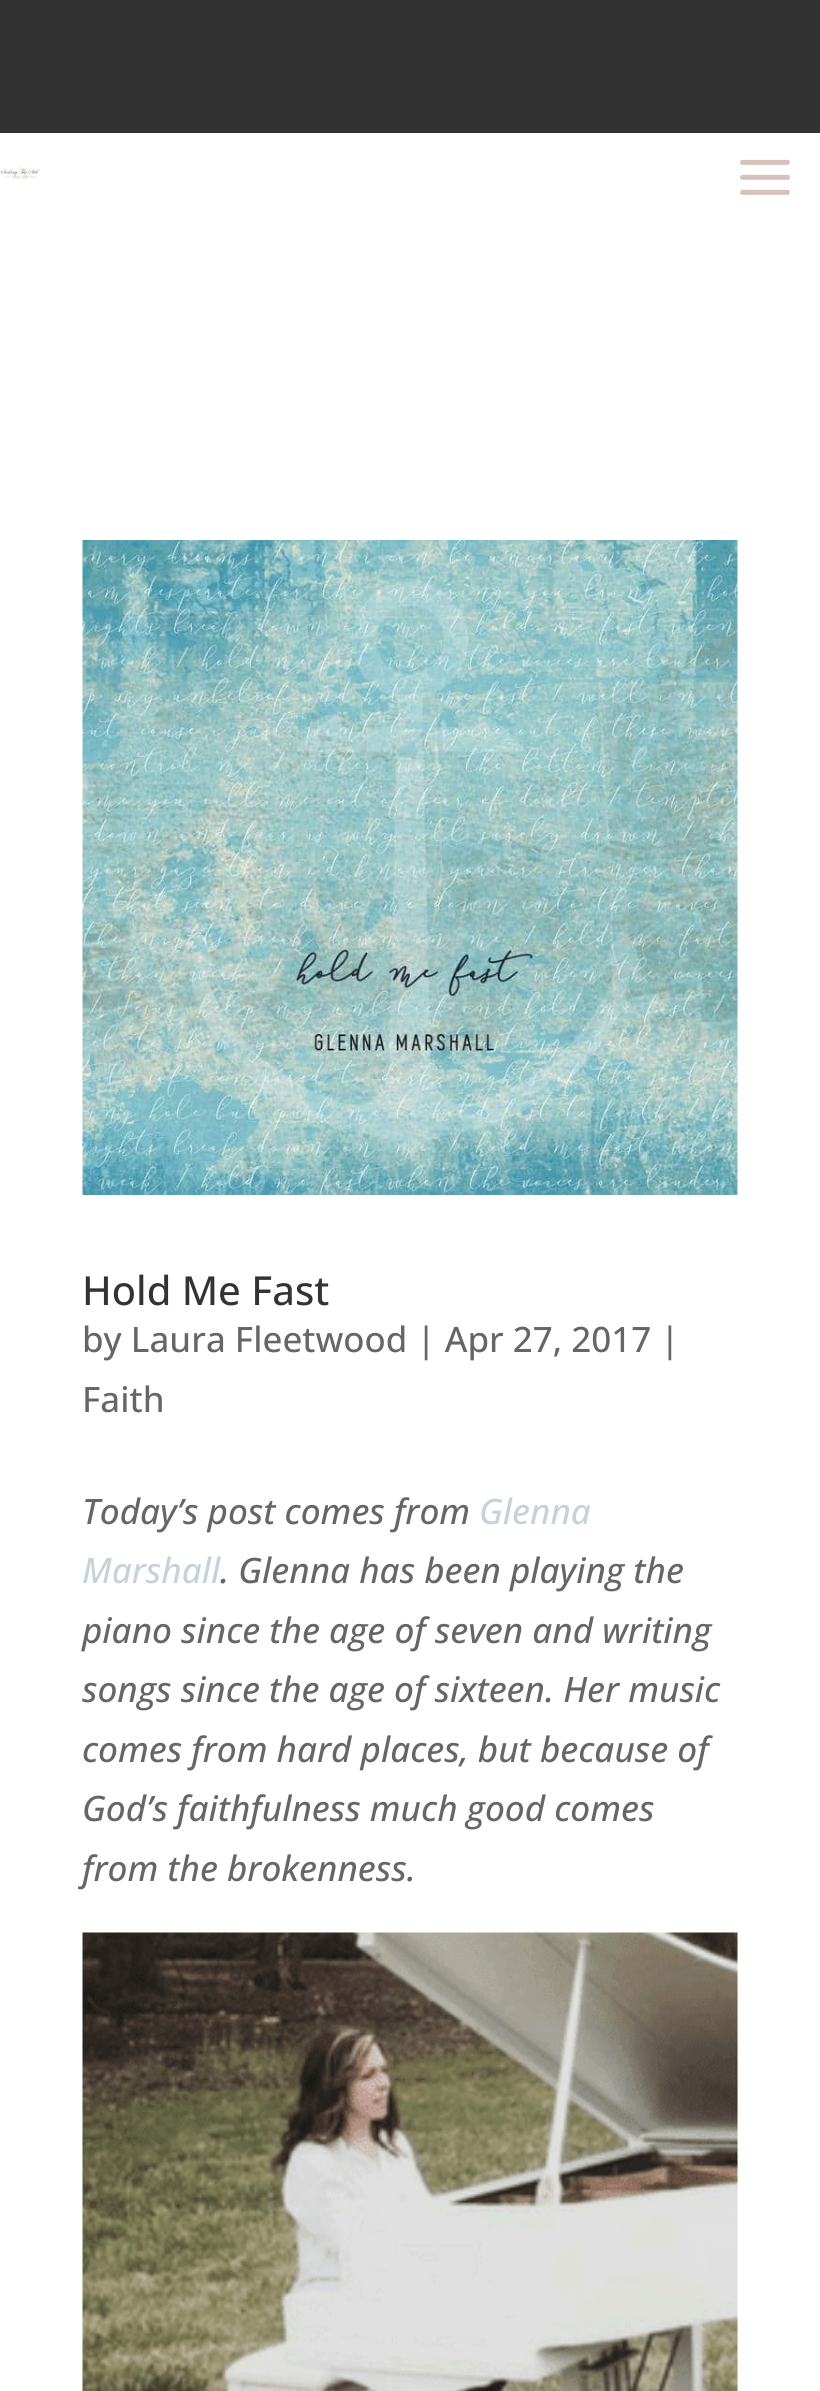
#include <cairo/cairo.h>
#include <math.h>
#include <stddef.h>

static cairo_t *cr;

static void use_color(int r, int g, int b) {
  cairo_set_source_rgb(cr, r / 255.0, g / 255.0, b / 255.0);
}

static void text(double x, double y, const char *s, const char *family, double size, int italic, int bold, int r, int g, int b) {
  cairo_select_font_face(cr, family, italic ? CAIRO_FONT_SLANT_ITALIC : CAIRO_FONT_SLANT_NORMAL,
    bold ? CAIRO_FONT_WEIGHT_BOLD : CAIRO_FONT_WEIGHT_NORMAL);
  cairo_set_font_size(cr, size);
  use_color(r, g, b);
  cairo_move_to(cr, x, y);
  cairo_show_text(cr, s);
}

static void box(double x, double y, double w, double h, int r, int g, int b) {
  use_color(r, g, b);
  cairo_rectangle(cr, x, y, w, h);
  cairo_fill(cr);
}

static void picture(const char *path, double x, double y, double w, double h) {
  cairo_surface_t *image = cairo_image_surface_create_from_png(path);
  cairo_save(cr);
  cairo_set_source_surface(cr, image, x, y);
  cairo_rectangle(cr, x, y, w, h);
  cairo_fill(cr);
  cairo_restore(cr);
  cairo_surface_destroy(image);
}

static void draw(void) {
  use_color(255, 255, 255);
  cairo_paint(cr);
  box(0, 0, 820, 133, 50, 50, 50);
  picture("img_01.png", 0, 166, 40, 14);
  picture("img_02.png", 740, 159, 50, 36);
  picture("img_03.png", 82, 540, 656, 655);
  picture("img_04.png", 82, 1932, 656, 459);
  text(82, 1305, "Hold Me Fast", "Open Sans Medium", 40, 0, 0, 51, 51, 51);
  text(82, 1352, "by Laura Fleetwood | Apr 27, 2017 |", "Open Sans Medium", 35, 0, 0, 102, 102, 102);
  text(82, 1412, "Faith", "Open Sans Medium", 35, 0, 0, 102, 102, 102);
  text(82, 1524, "Today’s post comes from", "Open Sans Medium", 35, 1, 0, 102, 102, 102);
  text(479, 1524, "Glenna", "Open Sans Medium", 35, 1, 0, 198, 210, 218);
  text(82, 1583, "Marshall", "Open Sans Medium", 35, 1, 0, 198, 210, 218);
  text(220, 1583, ". Glenna has been playing the", "Open Sans Medium", 35, 1, 0, 102, 102, 102);
  text(82, 1643, "piano since the age of seven and writing", "Open Sans Medium", 35, 1, 0, 102, 102, 102);
  text(82, 1702, "songs since the age of sixteen. Her music", "Open Sans Medium", 35, 1, 0, 102, 102, 102);
  text(82, 1762, "comes from hard places, but because of", "Open Sans Medium", 35, 1, 0, 102, 102, 102);
  text(82, 1821, "God’s faithfulness much good comes", "Open Sans Medium", 35, 1, 0, 102, 102, 102);
  text(82, 1881, "from the brokenness.", "Open Sans Medium", 35, 1, 0, 102, 102, 102);
}

int main(void) {
  cairo_surface_t *surface = cairo_image_surface_create(CAIRO_FORMAT_RGB24, 820, 2391);
  cr = cairo_create(surface);
  cairo_font_options_t *options = cairo_font_options_create();
  cairo_font_options_set_hint_metrics(options, CAIRO_HINT_METRICS_OFF);
  cairo_font_options_set_hint_style(options, CAIRO_HINT_STYLE_NONE);
  cairo_set_font_options(cr, options);
  cairo_set_miter_limit(cr, 4);
  draw();
  cairo_surface_write_to_png(surface, "out.png");
  cairo_font_options_destroy(options);
  cairo_destroy(cr);
  cairo_surface_destroy(surface);
  return 0;
}
